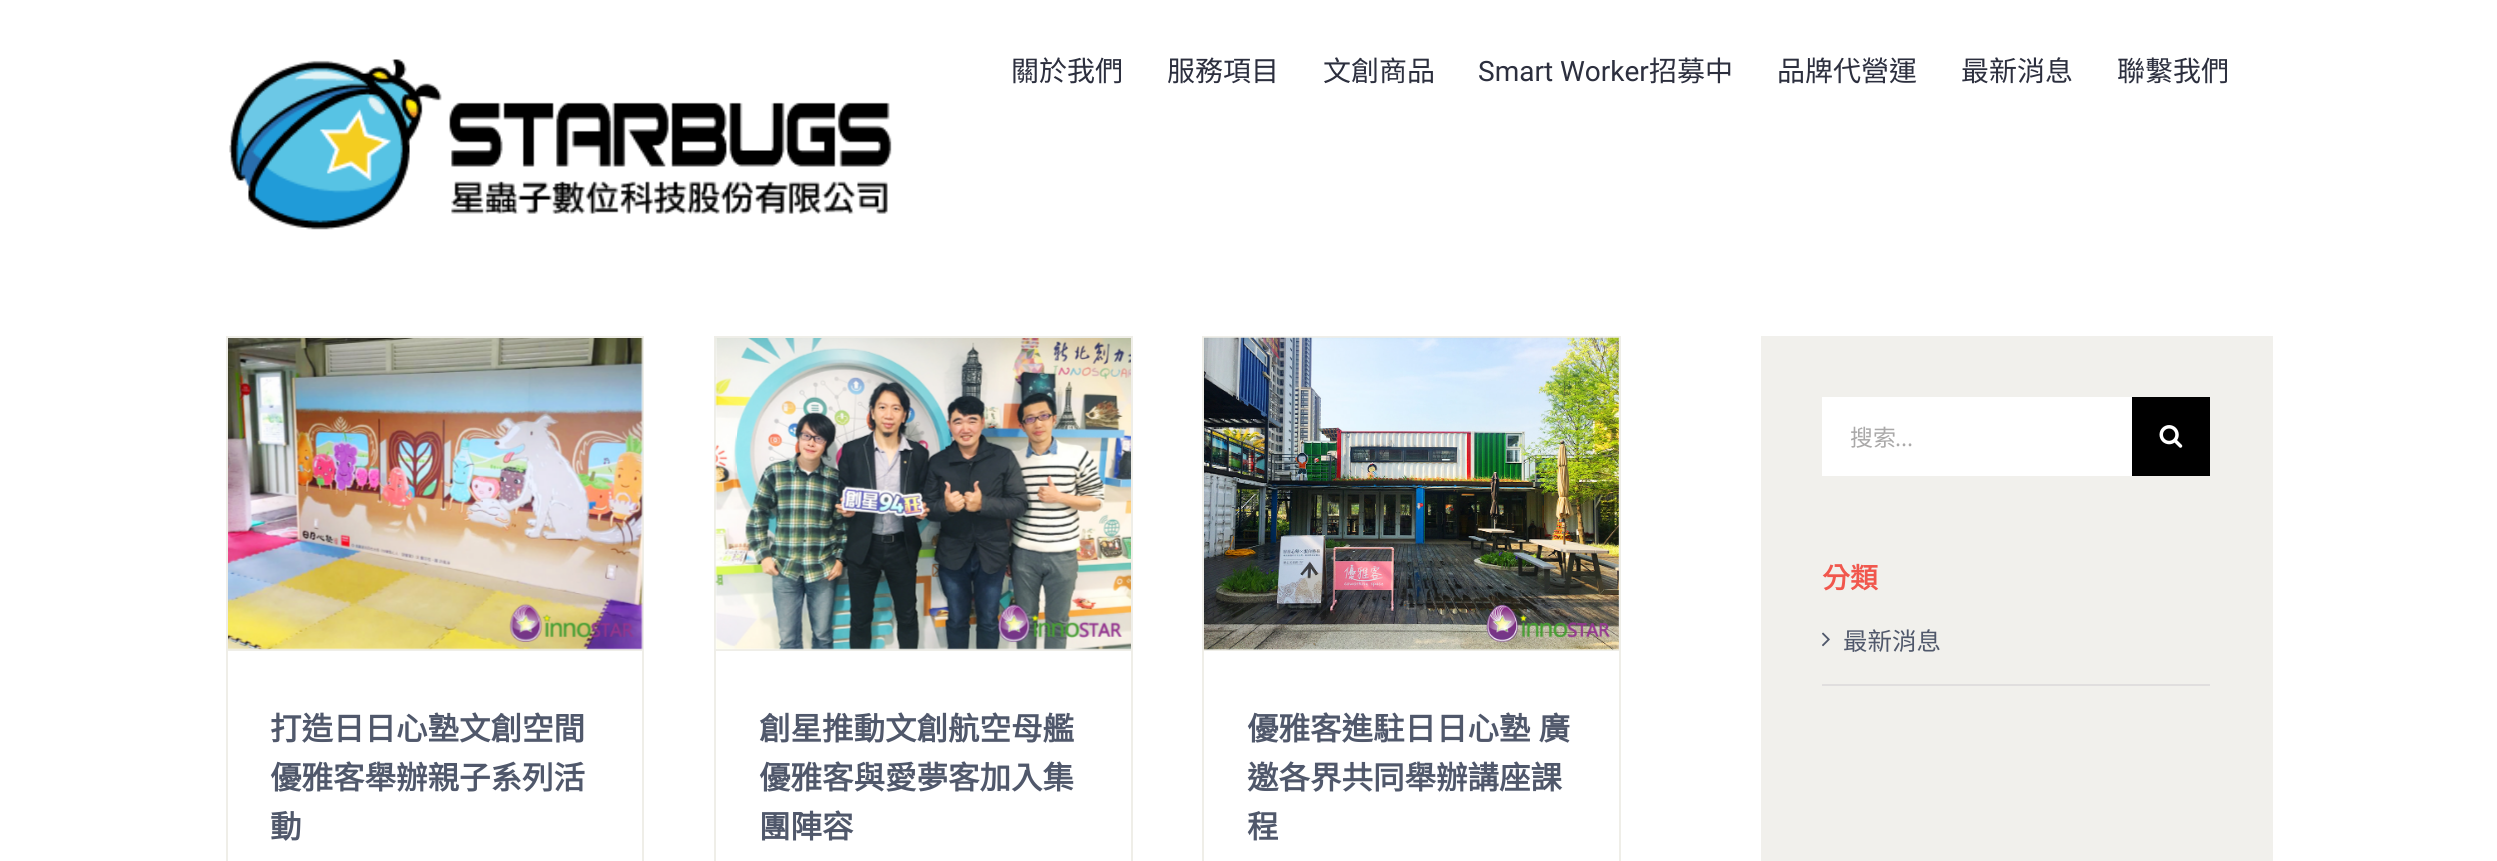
#include <cairo/cairo.h>
#include <math.h>
#include <stddef.h>

static cairo_t *cr;

static void use_color(int r, int g, int b) {
  cairo_set_source_rgb(cr, r / 255.0, g / 255.0, b / 255.0);
}

static void text(double x, double y, const char *s, const char *family, double size, int italic, int bold, int r, int g, int b) {
  cairo_select_font_face(cr, family, italic ? CAIRO_FONT_SLANT_ITALIC : CAIRO_FONT_SLANT_NORMAL,
    bold ? CAIRO_FONT_WEIGHT_BOLD : CAIRO_FONT_WEIGHT_NORMAL);
  cairo_set_font_size(cr, size);
  use_color(r, g, b);
  cairo_move_to(cr, x, y);
  cairo_show_text(cr, s);
}

static void spaced_text(double x, double y, const char *s, double letter, double word) {
  cairo_move_to(cr, x, y);
  while (*s) {
    char ch[5] = {0};
    int n = 0;
    do ch[n++] = *s++; while ((*s & 0xC0) == 0x80);
    cairo_show_text(cr, ch);
    cairo_rel_move_to(cr, letter + word * (*ch == ' '), 0);
  }
}

static void box(double x, double y, double w, double h, int r, int g, int b) {
  use_color(r, g, b);
  cairo_rectangle(cr, x, y, w, h);
  cairo_fill(cr);
}

static void picture(const char *path, double x, double y, double w, double h) {
  cairo_surface_t *image = cairo_image_surface_create_from_png(path);
  cairo_save(cr);
  cairo_set_source_surface(cr, image, x, y);
  cairo_rectangle(cr, x, y, w, h);
  cairo_fill(cr);
  cairo_restore(cr);
  cairo_surface_destroy(image);
}

static void draw(void) {
  use_color(255, 255, 255);
  cairo_paint(cr);
  picture("img_01.png", 229, 59, 663, 171);
  box(1761, 336, 512, 525, 241, 240, 236);
  box(1822, 397, 310, 79, 255, 255, 255);
  box(2132, 397, 78, 79, 0, 0, 0);
  picture("img_02.png", 2159, 425, 24, 23);
  box(1822, 684, 388, 2, 224, 222, 222);
  picture("img_03.png", 1822, 632, 8, 15);
  box(226, 336, 418, 2, 239, 238, 232);
  box(642, 336, 2, 525, 239, 238, 232);
  box(226, 336, 2, 525, 239, 238, 232);
  box(228, 649, 414, 2, 239, 238, 232);
  picture("img_04.png", 228, 338, 415, 312);
  box(714, 336, 418, 2, 239, 238, 232);
  box(1131, 336, 2, 525, 239, 238, 232);
  box(714, 336, 2, 525, 239, 238, 232);
  box(716, 649, 415, 2, 239, 238, 232);
  picture("img_05.png", 715, 338, 416, 312);
  box(1202, 336, 419, 2, 239, 238, 232);
  box(1619, 336, 2, 525, 239, 238, 232);
  box(1202, 336, 2, 525, 239, 238, 232);
  box(1204, 649, 415, 2, 239, 238, 232);
  picture("img_06.png", 1204, 337, 415, 313);
  text(1011, 81, "關於我們", "Noto Sans CJK TC", 28, 0, 0, 44, 47, 62);
  text(1167, 81, "服務項目", "Noto Sans CJK TC", 28, 0, 0, 44, 47, 62);
  text(1323, 81, "文創商品", "Noto Sans CJK TC", 28, 0, 0, 44, 47, 62);
  text(1478, 81, "Smart Worker", "Roboto", 28, 0, 0, 44, 47, 62);
  text(1649, 81, "招募中", "Noto Sans CJK TC", 28, 0, 0, 44, 47, 62);
  text(1777, 81, "品牌代營運", "Noto Sans CJK TC", 28, 0, 0, 44, 47, 62);
  text(1961, 81, "最新消息", "Noto Sans CJK TC", 28, 0, 0, 44, 47, 62);
  text(2117, 81, "聯繫我們", "Noto Sans CJK TC", 28, 0, 0, 44, 47, 62);
  text(1850, 446, "搜索", "Noto Sans CJK TC", 23, 0, 0, 170, 169, 169);
  text(1895, 446, "...", "Open Sans", 23, 0, 0, 170, 169, 169);
  text(1822, 588, "分類", "Noto Sans CJK TC", 28, 0, 1, 241, 87, 77);
  text(1843, 650, "最新消息", "Noto Sans CJK TC", 24.5, 0, 0, 80, 88, 107);
  text(270, 740, "打造日日心塾文創空間", "Noto Sans CJK TC", 31.5, 0, 1, 80, 88, 107);
  text(270, 789, "優雅客舉辦親子系列活", "Noto Sans CJK TC", 31.5, 0, 1, 80, 88, 107);
  text(270, 838, "動", "Noto Sans CJK TC", 31.5, 0, 1, 80, 88, 107);
  text(759, 740, "創星推動文創航空母艦", "Noto Sans CJK TC", 31.5, 0, 1, 80, 88, 107);
  text(759, 789, "優雅客與愛夢客加入集", "Noto Sans CJK TC", 31.5, 0, 1, 80, 88, 107);
  text(759, 838, "團陣容", "Noto Sans CJK TC", 31.5, 0, 1, 80, 88, 107);
  spaced_text(1247, 740, "優雅客進駐日日心塾 廣", 0, 1);
  text(1247, 789, "邀各界共同舉辦講座課", "Noto Sans CJK TC", 31.5, 0, 1, 80, 88, 107);
  text(1247, 838, "程", "Noto Sans CJK TC", 31.5, 0, 1, 80, 88, 107);
}

int main(void) {
  cairo_surface_t *surface = cairo_image_surface_create(CAIRO_FORMAT_RGB24, 2497, 861);
  cr = cairo_create(surface);
  cairo_font_options_t *options = cairo_font_options_create();
  cairo_font_options_set_hint_metrics(options, CAIRO_HINT_METRICS_OFF);
  cairo_font_options_set_hint_style(options, CAIRO_HINT_STYLE_NONE);
  cairo_set_font_options(cr, options);
  cairo_set_miter_limit(cr, 4);
  draw();
  cairo_surface_write_to_png(surface, "out.png");
  cairo_font_options_destroy(options);
  cairo_destroy(cr);
  cairo_surface_destroy(surface);
  return 0;
}
